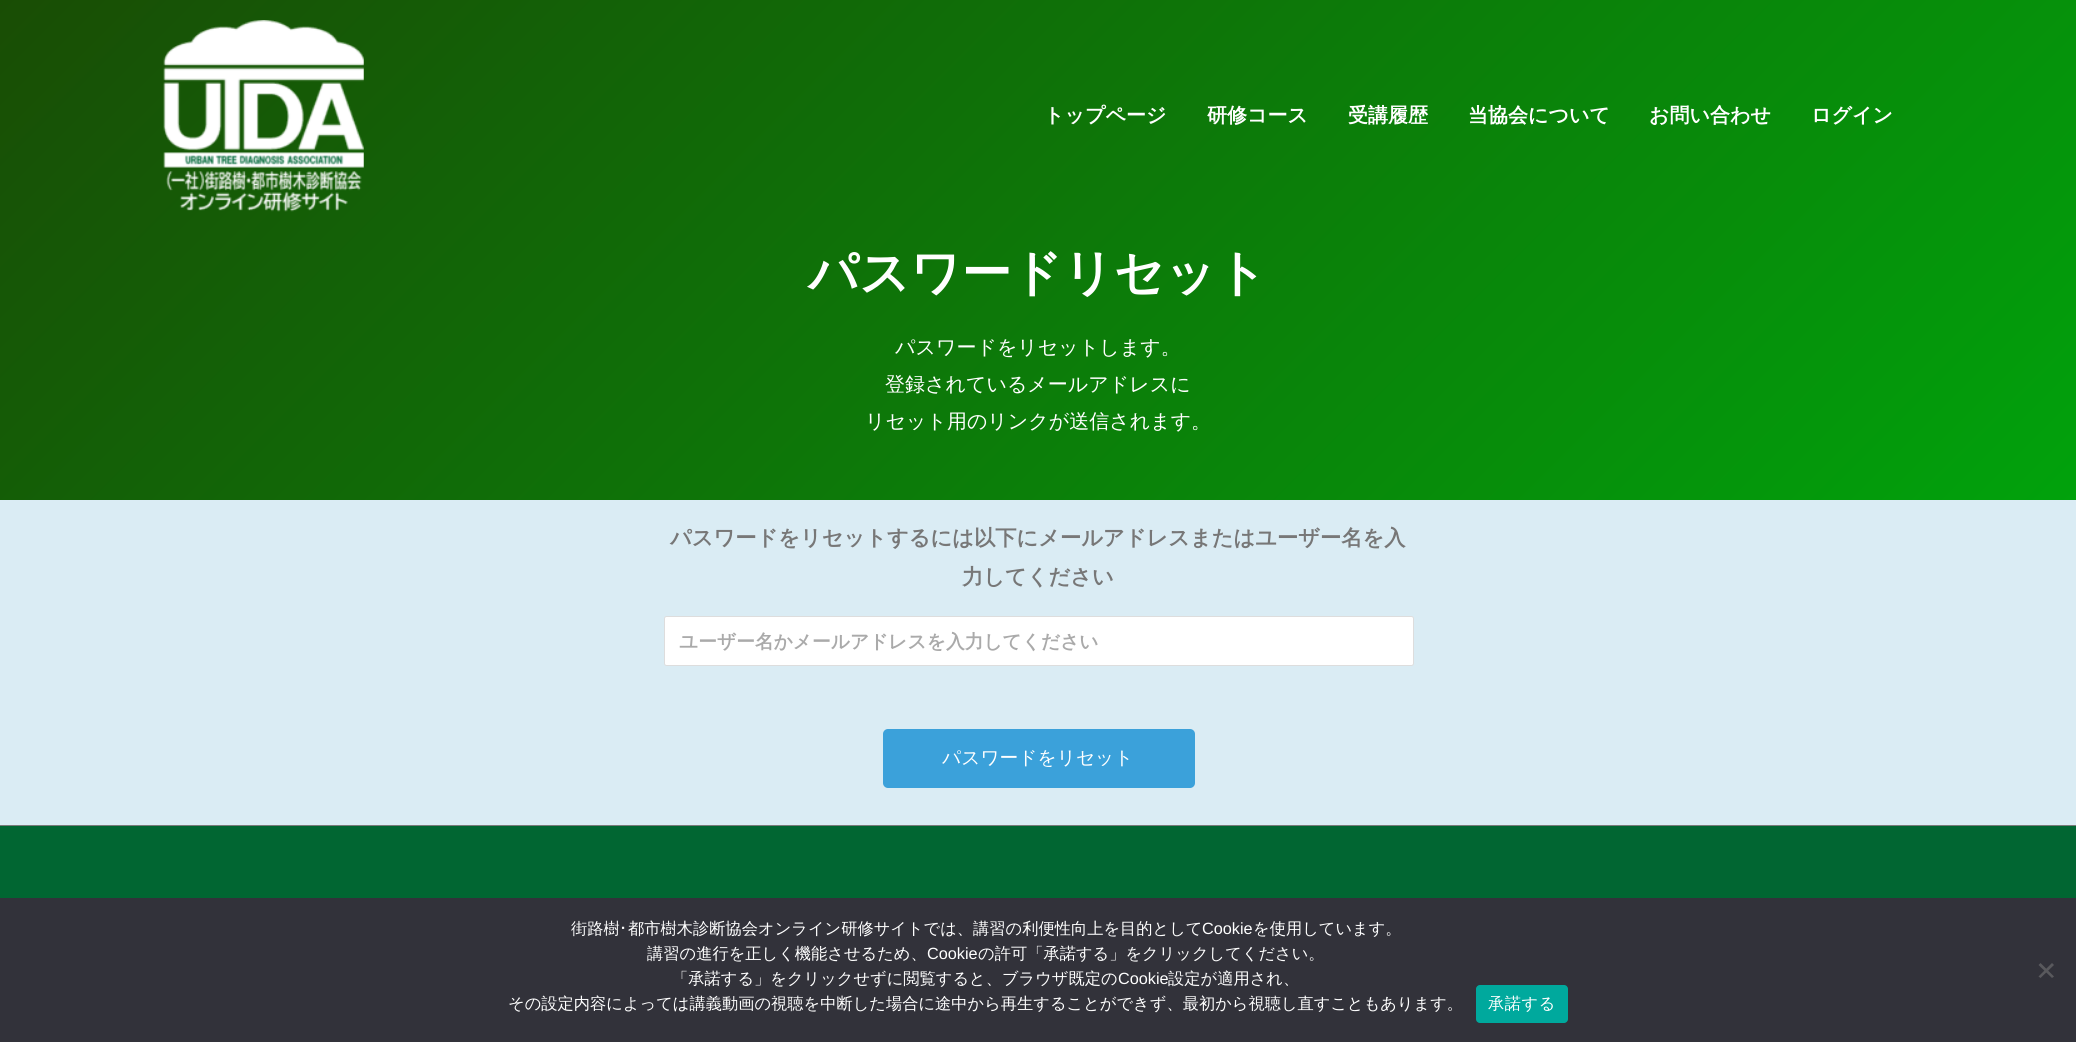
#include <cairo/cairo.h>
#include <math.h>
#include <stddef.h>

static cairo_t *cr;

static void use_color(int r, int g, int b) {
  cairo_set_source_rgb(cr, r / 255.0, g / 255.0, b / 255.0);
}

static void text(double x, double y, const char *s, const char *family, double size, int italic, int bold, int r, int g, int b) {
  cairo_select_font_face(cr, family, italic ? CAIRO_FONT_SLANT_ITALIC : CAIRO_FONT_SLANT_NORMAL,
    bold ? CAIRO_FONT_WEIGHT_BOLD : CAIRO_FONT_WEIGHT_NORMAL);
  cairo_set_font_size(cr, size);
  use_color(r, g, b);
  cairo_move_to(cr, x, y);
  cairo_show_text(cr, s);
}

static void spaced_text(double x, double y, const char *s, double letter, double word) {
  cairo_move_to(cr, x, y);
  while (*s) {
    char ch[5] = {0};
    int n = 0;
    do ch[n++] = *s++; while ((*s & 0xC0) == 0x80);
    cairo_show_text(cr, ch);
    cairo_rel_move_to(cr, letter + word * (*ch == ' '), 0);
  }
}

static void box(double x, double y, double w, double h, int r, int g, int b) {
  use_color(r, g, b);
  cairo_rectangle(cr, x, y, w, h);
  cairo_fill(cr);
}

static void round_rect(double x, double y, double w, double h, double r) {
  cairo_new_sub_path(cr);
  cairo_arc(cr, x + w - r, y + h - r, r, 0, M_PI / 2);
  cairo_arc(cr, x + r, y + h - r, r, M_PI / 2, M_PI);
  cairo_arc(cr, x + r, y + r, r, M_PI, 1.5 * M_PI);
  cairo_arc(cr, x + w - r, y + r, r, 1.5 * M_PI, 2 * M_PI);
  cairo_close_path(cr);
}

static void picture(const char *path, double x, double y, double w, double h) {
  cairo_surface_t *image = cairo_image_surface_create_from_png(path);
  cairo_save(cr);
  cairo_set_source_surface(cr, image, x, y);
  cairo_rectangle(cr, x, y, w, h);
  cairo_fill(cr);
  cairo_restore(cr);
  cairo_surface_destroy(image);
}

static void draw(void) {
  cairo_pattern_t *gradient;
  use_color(218, 236, 244);
  cairo_paint(cr);
  gradient = cairo_pattern_create_linear(394, -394, 1682, 894);
  cairo_pattern_add_color_stop_rgba(gradient, 0, 0.098, 0.302, 0.02, 1);
  cairo_pattern_add_color_stop_rgba(gradient, 1, 0.004, 0.635, 0.047, 1);
  cairo_set_source(cr, gradient);
  cairo_pattern_destroy(gradient);
  cairo_rectangle(cr, 0, 0, 2076, 500);
  cairo_fill(cr);
  picture("img_01.png", 163, 20, 201, 192);
  use_color(255, 255, 255);
  round_rect(664.5, 616.5, 749, 49, 2);
  cairo_fill_preserve(cr);
  use_color(221, 221, 221);
  cairo_set_line_width(cr, 1);
  cairo_stroke(cr);
  use_color(59, 161, 218);
  round_rect(883, 729, 312, 59, 5);
  cairo_fill(cr);
  box(0, 825, 2076, 1, 122, 122, 122);
  box(0, 826, 2076, 72, 1, 102, 50);
  box(0, 898, 2076, 144, 50, 50, 58);
  use_color(89, 89, 93);
  cairo_new_path(cr);
  cairo_move_to(cr, 2052, 963);
  cairo_line_to(cr, 2054, 965);
  cairo_line_to(cr, 2040.5, 978);
  cairo_line_to(cr, 2038.5, 976.5);
  cairo_close_path(cr);
  cairo_fill(cr);
  cairo_new_path(cr);
  cairo_move_to(cr, 2038.5, 965);
  cairo_line_to(cr, 2040.5, 963);
  cairo_line_to(cr, 2054, 976.5);
  cairo_line_to(cr, 2052, 978);
  cairo_close_path(cr);
  cairo_fill(cr);
  use_color(0, 169, 157);
  round_rect(1476, 985, 92, 38, 4);
  cairo_fill(cr);
  text(1044, 122, "トップページ", "WenQuanYi Zen Hei", 20, 0, 1, 255, 255, 255);
  text(1207, 122, "研修コース", "WenQuanYi Zen Hei", 20, 0, 1, 255, 255, 255);
  text(1348, 122, "受講履歴", "WenQuanYi Zen Hei", 20, 0, 1, 255, 255, 255);
  text(1468, 122, "当協会について", "WenQuanYi Zen Hei", 20, 0, 1, 255, 255, 255);
  text(1649, 122, "お問い合わせ", "WenQuanYi Zen Hei", 20, 0, 1, 255, 255, 255);
  text(1811, 122, "ログイン", "WenQuanYi Zen Hei", 20, 0, 1, 255, 255, 255);
  text(808, 290, "パスワードリセット", "WenQuanYi Zen Hei", 50, 0, 1, 255, 255, 255);
  text(895, 354, "パスワードをリセットします。", "WenQuanYi Zen Hei Medium", 20, 0, 0, 255, 255, 255);
  text(885, 391, "登録されているメールアドレスに", "WenQuanYi Zen Hei Medium", 20, 0, 0, 255, 255, 255);
  text(865, 428, "リセット用のリンクが送信されます。", "WenQuanYi Zen Hei Medium", 20, 0, 0, 255, 255, 255);
  text(670, 545, "パスワードをリセットするには以下にメールアドレスまたはユーザー名を入", "WenQuanYi Zen Hei", 21.25, 0, 1, 119, 119, 119);
  text(962, 584, "力してください", "WenQuanYi Zen Hei", 21.25, 0, 1, 119, 119, 119);
  text(679, 648, "ユーザー名かメールアドレスを入力してください", "WenQuanYi Zen Hei", 18.75, 0, 1, 170, 170, 170);
  text(942, 764, "パスワードをリセット", "WenQuanYi Zen Hei Medium", 18.75, 0, 0, 255, 255, 255);
  text(571, 934, "街路樹", "WenQuanYi Zen Hei Medium", 16.25, 0, 0, 255, 255, 255);
  text(619, 934, "･", "IPAPGothic", 16.25, 0, 0, 255, 255, 255);
  text(628, 934, "都市樹木診断協会オンライン研修サイトでは、講習の利便性向上を目的として", "WenQuanYi Zen Hei Medium", 16.25, 0, 0, 255, 255, 255);
  text(1202, 934, "Cookie", "Liberation Sans", 16.25, 0, 0, 255, 255, 255);
  text(1253, 934, "を使用しています。", "WenQuanYi Zen Hei Medium", 16.25, 0, 0, 255, 255, 255);
  text(647, 959, "講習の進行を正しく機能させるため、", "WenQuanYi Zen Hei Medium", 16.25, 0, 0, 255, 255, 255);
  text(927, 959, "Cookie", "Liberation Sans", 16.25, 0, 0, 255, 255, 255);
  text(978, 959, "の許可「承諾する」をクリックしてください。", "WenQuanYi Zen Hei Medium", 16.25, 0, 0, 255, 255, 255);
  text(672, 984, "「承諾する」をクリックせずに閲覧すると、ブラウザ既定の", "WenQuanYi Zen Hei Medium", 16.25, 0, 0, 255, 255, 255);
  text(1118, 984, "Cookie", "Liberation Sans", 16.25, 0, 0, 255, 255, 255);
  text(1168, 984, "設定が適用され、", "WenQuanYi Zen Hei Medium", 16.25, 0, 0, 255, 255, 255);
  text(508, 1009, "その設定内容によっては講義動画の視聴を中断した場合に途中から再生することができず、最初から視聴し直すこともあります。", "WenQuanYi Zen Hei Medium", 16.25, 0, 0, 255, 255, 255);
  spaced_text(1488, 1009, "承諾する", 0.5, 0);
}

int main(void) {
  cairo_surface_t *surface = cairo_image_surface_create(CAIRO_FORMAT_RGB24, 2076, 1042);
  cr = cairo_create(surface);
  cairo_font_options_t *options = cairo_font_options_create();
  cairo_font_options_set_hint_metrics(options, CAIRO_HINT_METRICS_OFF);
  cairo_font_options_set_hint_style(options, CAIRO_HINT_STYLE_NONE);
  cairo_set_font_options(cr, options);
  cairo_set_miter_limit(cr, 4);
  draw();
  cairo_surface_write_to_png(surface, "out.png");
  cairo_font_options_destroy(options);
  cairo_destroy(cr);
  cairo_surface_destroy(surface);
  return 0;
}
